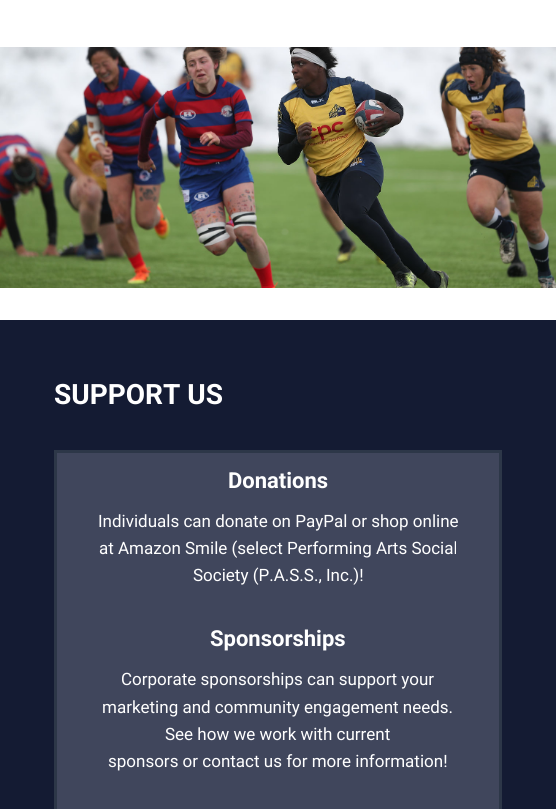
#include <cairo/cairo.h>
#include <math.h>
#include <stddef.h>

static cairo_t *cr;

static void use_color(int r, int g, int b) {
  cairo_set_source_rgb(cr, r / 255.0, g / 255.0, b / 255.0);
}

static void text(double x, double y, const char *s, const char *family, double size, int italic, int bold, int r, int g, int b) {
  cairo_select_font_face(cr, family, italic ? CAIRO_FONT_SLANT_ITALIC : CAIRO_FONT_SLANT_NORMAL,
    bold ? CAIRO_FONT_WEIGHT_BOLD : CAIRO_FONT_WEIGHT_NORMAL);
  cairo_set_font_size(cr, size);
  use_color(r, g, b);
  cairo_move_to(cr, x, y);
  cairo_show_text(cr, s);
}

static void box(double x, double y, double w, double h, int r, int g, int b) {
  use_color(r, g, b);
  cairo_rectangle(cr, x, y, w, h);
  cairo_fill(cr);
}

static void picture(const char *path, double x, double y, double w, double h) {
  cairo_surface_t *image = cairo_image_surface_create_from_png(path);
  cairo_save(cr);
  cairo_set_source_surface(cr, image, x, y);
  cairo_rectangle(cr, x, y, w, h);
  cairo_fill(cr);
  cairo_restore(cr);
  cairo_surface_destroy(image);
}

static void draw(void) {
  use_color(255, 255, 255);
  cairo_paint(cr);
  picture("img_01.png", 0, 47, 556, 241);
  box(0, 320, 556, 489, 20, 27, 51);
  use_color(64, 70, 92);
  cairo_rectangle(cr, 55.5, 451.5, 445, 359);
  cairo_fill_preserve(cr);
  use_color(45, 55, 72);
  cairo_set_line_width(cr, 3);
  cairo_stroke(cr);
  text(54, 404, "SUPPORT US", "Roboto", 28, 0, 1, 255, 255, 255);
  text(228, 488, "Donations", "Roboto", 22, 0, 1, 255, 255, 255);
  text(98, 527, "Individuals can donate on PayPal or shop online", "Roboto", 17, 0, 0, 255, 255, 255);
  text(99, 554, "at Amazon Smile (select Performing Arts Social", "Roboto", 17, 0, 0, 255, 255, 255);
  text(193, 581, "Society (P.A.S.S., Inc.)!", "Roboto", 17, 0, 0, 255, 255, 255);
  text(210, 646, "Sponsorships", "Roboto", 22, 0, 1, 255, 255, 255);
  text(121, 685, "Corporate sponsorships can support your", "Roboto", 17, 0, 0, 255, 255, 255);
  text(102, 713, "marketing and community engagement needs.", "Roboto", 17, 0, 0, 255, 255, 255);
  text(165, 740, "See how we work with current", "Roboto", 17, 0, 0, 255, 255, 255);
  text(108, 767, "sponsors or contact us for more information!", "Roboto", 17, 0, 0, 255, 255, 255);
}

int main(void) {
  cairo_surface_t *surface = cairo_image_surface_create(CAIRO_FORMAT_RGB24, 556, 809);
  cr = cairo_create(surface);
  cairo_font_options_t *options = cairo_font_options_create();
  cairo_font_options_set_hint_metrics(options, CAIRO_HINT_METRICS_OFF);
  cairo_font_options_set_hint_style(options, CAIRO_HINT_STYLE_NONE);
  cairo_set_font_options(cr, options);
  cairo_set_miter_limit(cr, 4);
  draw();
  cairo_surface_write_to_png(surface, "out.png");
  cairo_font_options_destroy(options);
  cairo_destroy(cr);
  cairo_surface_destroy(surface);
  return 0;
}
